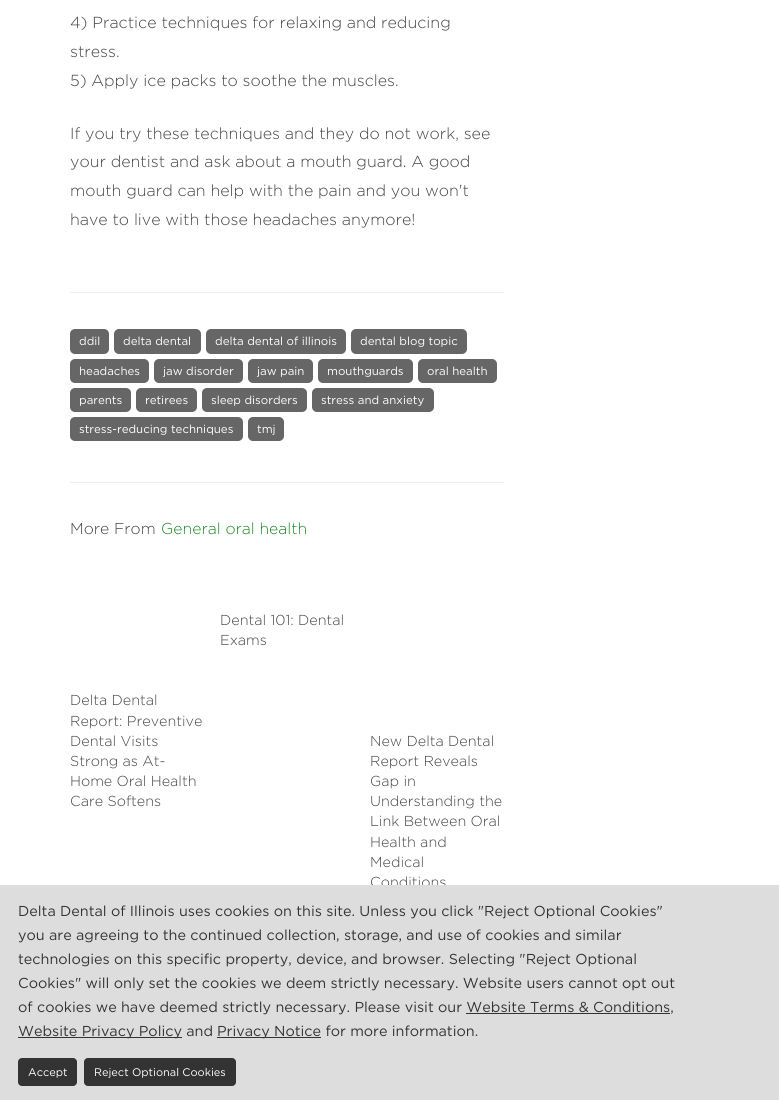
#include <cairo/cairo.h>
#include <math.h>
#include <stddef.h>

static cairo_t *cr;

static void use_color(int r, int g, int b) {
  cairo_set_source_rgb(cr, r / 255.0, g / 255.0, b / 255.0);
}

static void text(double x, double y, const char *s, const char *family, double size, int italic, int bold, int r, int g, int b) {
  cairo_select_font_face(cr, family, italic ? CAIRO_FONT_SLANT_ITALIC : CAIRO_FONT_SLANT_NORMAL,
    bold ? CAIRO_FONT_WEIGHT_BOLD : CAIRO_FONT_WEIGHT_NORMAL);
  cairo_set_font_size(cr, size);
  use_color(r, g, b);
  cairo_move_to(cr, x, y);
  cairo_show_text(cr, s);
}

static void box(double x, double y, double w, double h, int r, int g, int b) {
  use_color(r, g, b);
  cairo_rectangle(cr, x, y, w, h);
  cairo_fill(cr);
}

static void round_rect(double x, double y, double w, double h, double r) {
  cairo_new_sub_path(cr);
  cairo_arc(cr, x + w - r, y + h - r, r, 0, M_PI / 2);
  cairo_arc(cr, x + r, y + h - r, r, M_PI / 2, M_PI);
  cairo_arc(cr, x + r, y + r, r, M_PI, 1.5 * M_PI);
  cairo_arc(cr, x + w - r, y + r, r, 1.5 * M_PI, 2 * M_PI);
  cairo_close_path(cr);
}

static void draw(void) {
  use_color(255, 255, 255);
  cairo_paint(cr);
  box(70, 292, 434, 1, 238, 238, 238);
  use_color(102, 102, 102);
  round_rect(70, 329, 39, 25, 5);
  cairo_fill(cr);
  round_rect(114, 329, 87, 25, 5);
  cairo_fill(cr);
  round_rect(206, 329, 140, 25, 5);
  cairo_fill(cr);
  round_rect(351, 329, 116, 25, 5);
  cairo_fill(cr);
  round_rect(70, 359, 79, 24, 5);
  cairo_fill(cr);
  round_rect(154, 359, 89, 24, 5);
  cairo_fill(cr);
  round_rect(248, 359, 65, 24, 5);
  cairo_fill(cr);
  round_rect(318, 359, 95, 24, 5);
  cairo_fill(cr);
  round_rect(418, 359, 79, 24, 5);
  cairo_fill(cr);
  round_rect(70, 388, 61, 24, 5);
  cairo_fill(cr);
  round_rect(136, 388, 61, 24, 5);
  cairo_fill(cr);
  round_rect(202, 388, 105, 24, 5);
  cairo_fill(cr);
  round_rect(312, 388, 122, 24, 5);
  cairo_fill(cr);
  round_rect(70, 417, 173, 24, 5);
  cairo_fill(cr);
  round_rect(248, 417, 36, 24, 5);
  cairo_fill(cr);
  box(70, 482, 434, 1, 238, 238, 238);
  text(70, 28, "4) Practice techniques for relaxing and reducing", "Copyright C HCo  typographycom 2 Light", 16, 0, 0, 68, 68, 68);
  text(70, 57, "stress.", "Copyright C HCo  typographycom 2 Light", 16, 0, 0, 68, 68, 68);
  text(70, 86, "5) Apply ice packs to soothe the muscles.", "Copyright C HCo  typographycom 2 Light", 16, 0, 0, 68, 68, 68);
  text(70, 139, "If you try these techniques and they do not work, see", "Copyright C HCo  typographycom 2 Light", 16, 0, 0, 68, 68, 68);
  text(70, 167, "your dentist and ask about a mouth guard. A good", "Copyright C HCo  typographycom 2 Light", 16, 0, 0, 68, 68, 68);
  text(70, 196, "mouth guard can help with the pain and you won't", "Copyright C HCo  typographycom 2 Light", 16, 0, 0, 68, 68, 68);
  text(70, 225, "have to live with those headaches anymore!", "Copyright C HCo  typographycom 2 Light", 16, 0, 0, 68, 68, 68);
  text(79, 345, "ddil", "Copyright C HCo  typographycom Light", 11.5, 0, 0, 255, 255, 255);
  text(123, 345, "delta dental", "Copyright C HCo  typographycom Light", 11.5, 0, 0, 255, 255, 255);
  text(215, 345, "delta dental of illinois", "Copyright C HCo  typographycom Light", 11.5, 0, 0, 255, 255, 255);
  text(360, 345, "dental blog topic", "Copyright C HCo  typographycom Light", 11.5, 0, 0, 255, 255, 255);
  text(79, 375, "headaches", "Copyright C HCo  typographycom Light", 11.5, 0, 0, 255, 255, 255);
  text(163, 375, "jaw disorder", "Copyright C HCo  typographycom Light", 11.5, 0, 0, 255, 255, 255);
  text(257, 375, "jaw pain", "Copyright C HCo  typographycom Light", 11.5, 0, 0, 255, 255, 255);
  text(327, 375, "mouthguards", "Copyright C HCo  typographycom Light", 11.5, 0, 0, 255, 255, 255);
  text(427, 375, "oral health", "Copyright C HCo  typographycom Light", 11.5, 0, 0, 255, 255, 255);
  text(79, 404, "parents", "Copyright C HCo  typographycom Light", 11.5, 0, 0, 255, 255, 255);
  text(145, 404, "retirees", "Copyright C HCo  typographycom Light", 11.5, 0, 0, 255, 255, 255);
  text(211, 404, "sleep disorders", "Copyright C HCo  typographycom Light", 11.5, 0, 0, 255, 255, 255);
  text(321, 404, "stress and anxiety", "Copyright C HCo  typographycom Light", 11.5, 0, 0, 255, 255, 255);
  text(79, 433, "stress-reducing techniques", "Copyright C HCo  typographycom Light", 11.5, 0, 0, 255, 255, 255);
  text(257, 433, "tmj", "Copyright C HCo  typographycom Light", 11.5, 0, 0, 255, 255, 255);
  text(70, 534, "More From", "Copyright C HCo  typographycom 2 Light", 15.75, 0, 0, 68, 68, 68);
  text(161, 534, "General oral health", "Copyright C HCo  typographycom 2 Light", 15.75, 0, 0, 29, 137, 40);
  text(220, 625, "Dental 101: Dental", "Copyright C HCo  typographycom 2 Light", 14.4, 0, 0, 68, 68, 68);
  text(220, 645, "Exams", "Copyright C HCo  typographycom 2 Light", 14.4, 0, 0, 68, 68, 68);
  text(70, 705, "Delta Dental", "Copyright C HCo  typographycom 2 Light", 14.4, 0, 0, 68, 68, 68);
  text(70, 726, "Report: Preventive", "Copyright C HCo  typographycom 2 Light", 14.4, 0, 0, 68, 68, 68);
  text(70, 746, "Dental Visits", "Copyright C HCo  typographycom 2 Light", 14.4, 0, 0, 68, 68, 68);
  text(70, 766, "Strong as At-", "Copyright C HCo  typographycom 2 Light", 14.4, 0, 0, 68, 68, 68);
  text(70, 786, "Home Oral Health", "Copyright C HCo  typographycom 2 Light", 14.4, 0, 0, 68, 68, 68);
  text(70, 806, "Care Softens", "Copyright C HCo  typographycom 2 Light", 14.4, 0, 0, 68, 68, 68);
  text(370, 746, "New Delta Dental", "Copyright C HCo  typographycom 2 Light", 14.4, 0, 0, 68, 68, 68);
  text(370, 766, "Report Reveals", "Copyright C HCo  typographycom 2 Light", 14.4, 0, 0, 68, 68, 68);
  text(370, 786, "Gap in", "Copyright C HCo  typographycom 2 Light", 14.4, 0, 0, 68, 68, 68);
  text(370, 806, "Understanding the", "Copyright C HCo  typographycom 2 Light", 14.4, 0, 0, 68, 68, 68);
  text(370, 826, "Link Between Oral", "Copyright C HCo  typographycom 2 Light", 14.4, 0, 0, 68, 68, 68);
  text(370, 847, "Health and", "Copyright C HCo  typographycom 2 Light", 14.4, 0, 0, 68, 68, 68);
  text(370, 867, "Medical", "Copyright C HCo  typographycom 2 Light", 14.4, 0, 0, 68, 68, 68);
  text(370, 887, "Conditions", "Copyright C HCo  typographycom 2 Light", 14.4, 0, 0, 68, 68, 68);
  box(0, 885, 779, 215, 221, 221, 221);
  text(18, 916, "Delta Dental of Illinois uses cookies on this site. Unless you click \"Reject Optional Cookies\"", "Copyright C HCo  typographycom Light", 14.4, 0, 0, 51, 51, 51);
  text(18, 940, "you are agreeing to the continued collection, storage, and use of cookies and similar", "Copyright C HCo  typographycom Light", 14.4, 0, 0, 51, 51, 51);
  text(18, 964, "technologies on this specific property, device, and browser. Selecting \"Reject Optional", "Copyright C HCo  typographycom Light", 14.4, 0, 0, 51, 51, 51);
  text(18, 988, "Cookies\" will only set the cookies we deem strictly necessary. Website users cannot opt out", "Copyright C HCo  typographycom Light", 14.4, 0, 0, 51, 51, 51);
  text(18, 1012, "of cookies we have deemed strictly necessary. Please visit our Website Terms & Conditions,", "Copyright C HCo  typographycom Light", 14.4, 0, 0, 51, 51, 51);
  box(466, 1013, 204, 1, 51, 51, 51);
  box(18, 1037, 164, 1, 51, 51, 51);
  text(18, 1036, "Website Privacy Policy and", "Copyright C HCo  typographycom Light", 14.4, 0, 0, 51, 51, 51);
  box(217, 1037, 104, 1, 51, 51, 51);
  text(217, 1036, "Privacy Notice for more information.", "Copyright C HCo  typographycom Light", 14.4, 0, 0, 51, 51, 51);
  round_rect(18.5, 1058.5, 58, 27, 3.5);
  cairo_fill_preserve(cr);
  cairo_set_line_width(cr, 1);
  cairo_stroke(cr);
  text(28, 1076, "Accept", "Copyright C HCo  typographycom Light", 11, 0, 0, 255, 255, 255);
  use_color(51, 51, 51);
  round_rect(84.5, 1058.5, 151, 27, 3.5);
  cairo_fill_preserve(cr);
  cairo_stroke(cr);
  text(94, 1076, "Reject Optional Cookies", "Copyright C HCo  typographycom Light", 11, 0, 0, 255, 255, 255);
}

int main(void) {
  cairo_surface_t *surface = cairo_image_surface_create(CAIRO_FORMAT_RGB24, 779, 1100);
  cr = cairo_create(surface);
  cairo_font_options_t *options = cairo_font_options_create();
  cairo_font_options_set_hint_metrics(options, CAIRO_HINT_METRICS_OFF);
  cairo_font_options_set_hint_style(options, CAIRO_HINT_STYLE_NONE);
  cairo_set_font_options(cr, options);
  cairo_set_miter_limit(cr, 4);
  draw();
  cairo_surface_write_to_png(surface, "out.png");
  cairo_font_options_destroy(options);
  cairo_destroy(cr);
  cairo_surface_destroy(surface);
  return 0;
}
